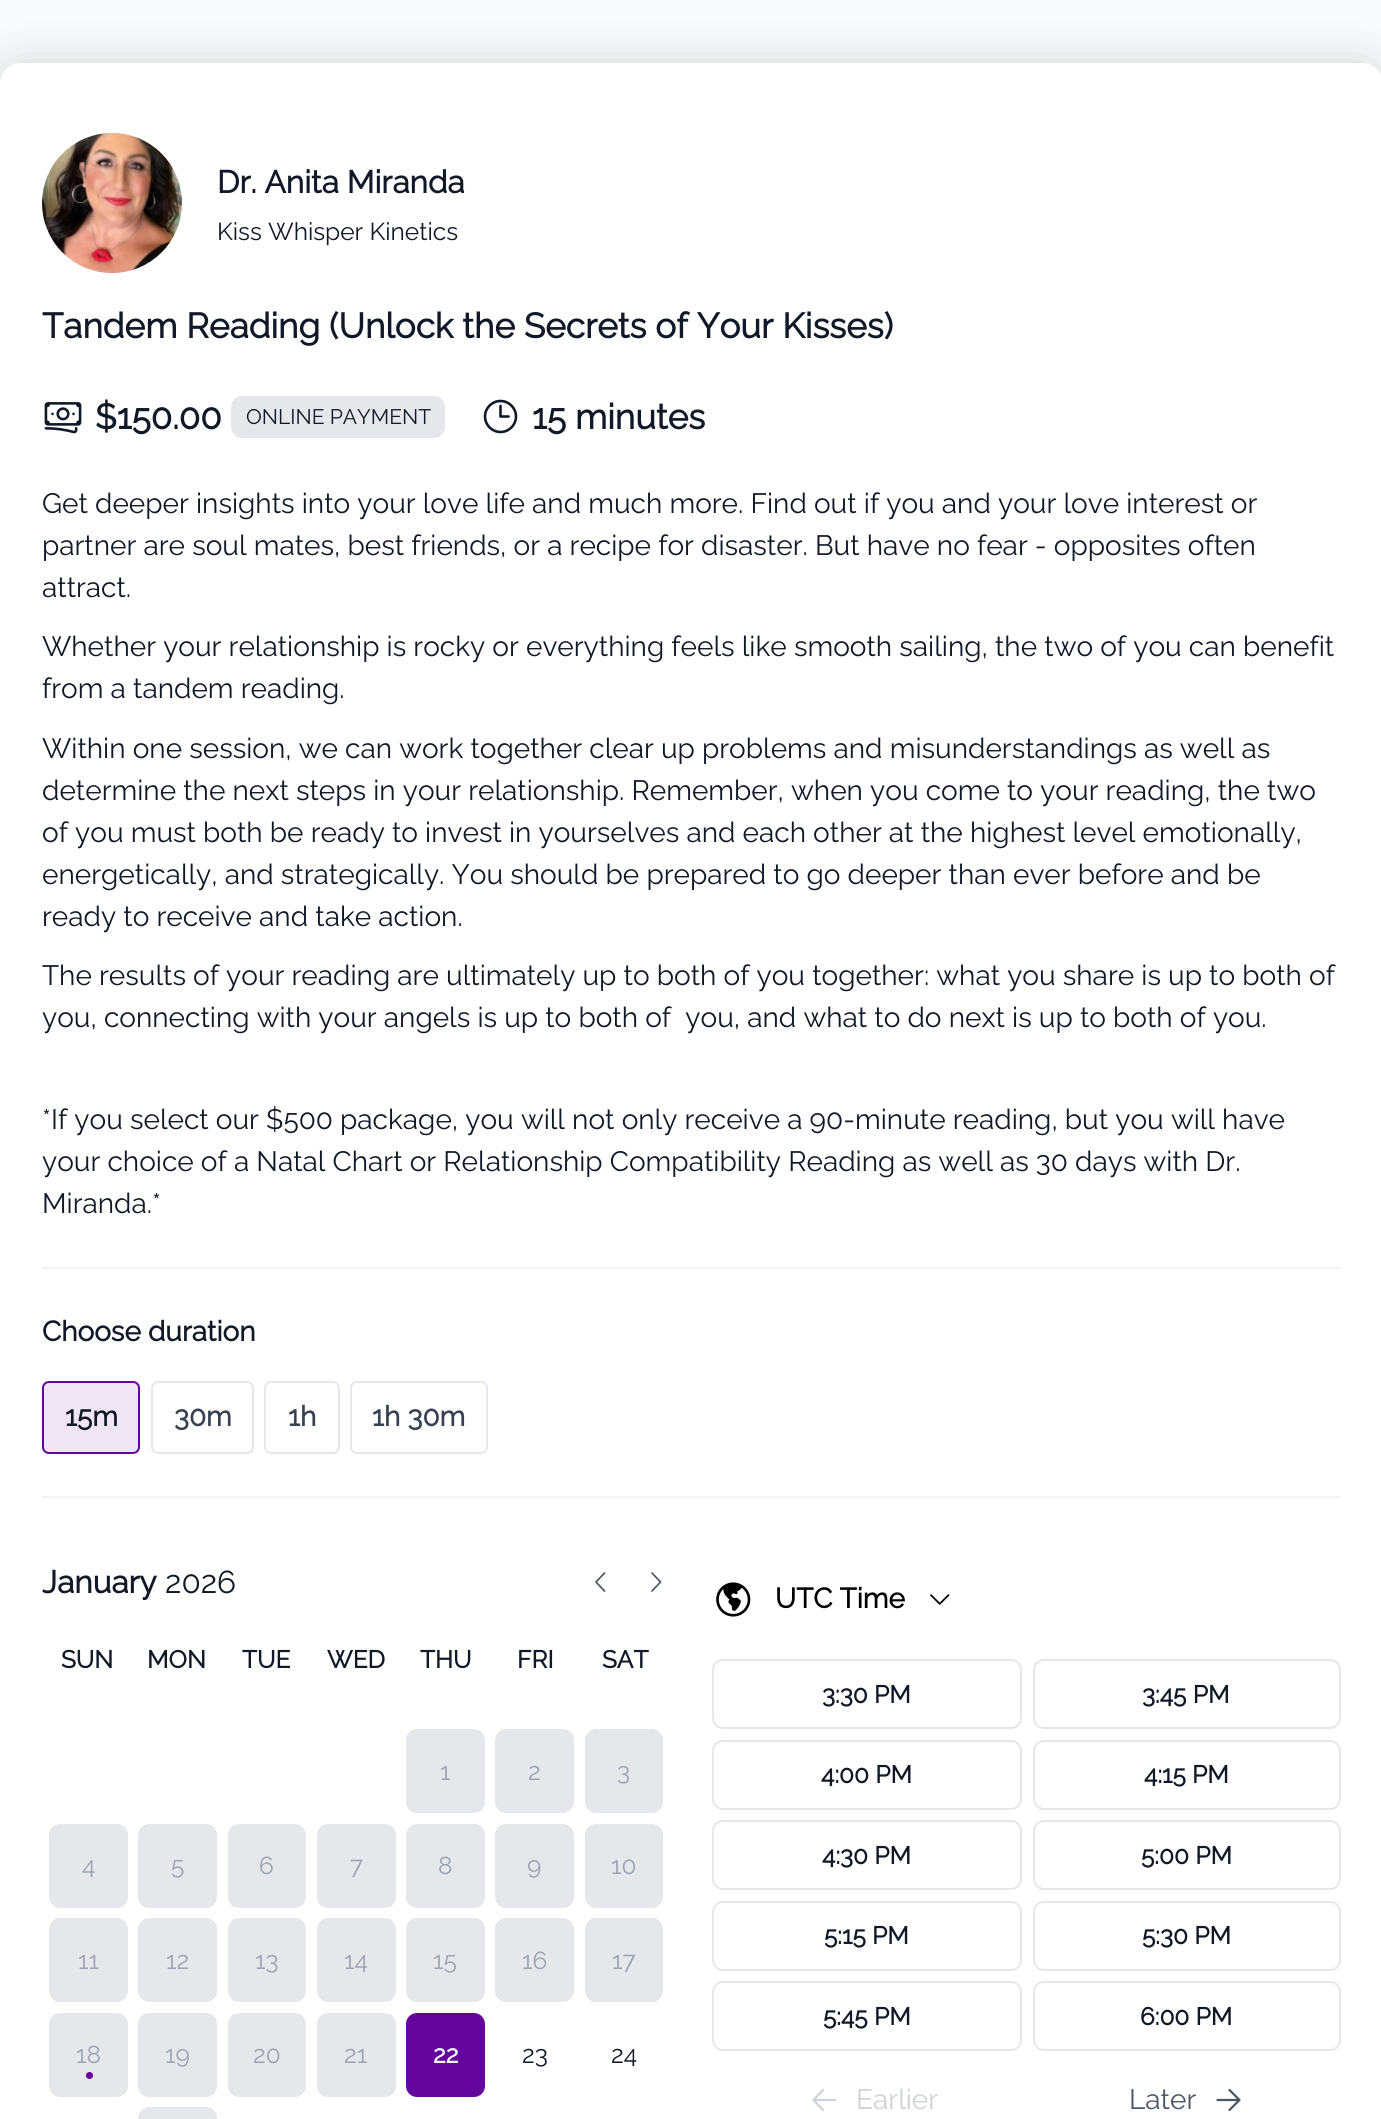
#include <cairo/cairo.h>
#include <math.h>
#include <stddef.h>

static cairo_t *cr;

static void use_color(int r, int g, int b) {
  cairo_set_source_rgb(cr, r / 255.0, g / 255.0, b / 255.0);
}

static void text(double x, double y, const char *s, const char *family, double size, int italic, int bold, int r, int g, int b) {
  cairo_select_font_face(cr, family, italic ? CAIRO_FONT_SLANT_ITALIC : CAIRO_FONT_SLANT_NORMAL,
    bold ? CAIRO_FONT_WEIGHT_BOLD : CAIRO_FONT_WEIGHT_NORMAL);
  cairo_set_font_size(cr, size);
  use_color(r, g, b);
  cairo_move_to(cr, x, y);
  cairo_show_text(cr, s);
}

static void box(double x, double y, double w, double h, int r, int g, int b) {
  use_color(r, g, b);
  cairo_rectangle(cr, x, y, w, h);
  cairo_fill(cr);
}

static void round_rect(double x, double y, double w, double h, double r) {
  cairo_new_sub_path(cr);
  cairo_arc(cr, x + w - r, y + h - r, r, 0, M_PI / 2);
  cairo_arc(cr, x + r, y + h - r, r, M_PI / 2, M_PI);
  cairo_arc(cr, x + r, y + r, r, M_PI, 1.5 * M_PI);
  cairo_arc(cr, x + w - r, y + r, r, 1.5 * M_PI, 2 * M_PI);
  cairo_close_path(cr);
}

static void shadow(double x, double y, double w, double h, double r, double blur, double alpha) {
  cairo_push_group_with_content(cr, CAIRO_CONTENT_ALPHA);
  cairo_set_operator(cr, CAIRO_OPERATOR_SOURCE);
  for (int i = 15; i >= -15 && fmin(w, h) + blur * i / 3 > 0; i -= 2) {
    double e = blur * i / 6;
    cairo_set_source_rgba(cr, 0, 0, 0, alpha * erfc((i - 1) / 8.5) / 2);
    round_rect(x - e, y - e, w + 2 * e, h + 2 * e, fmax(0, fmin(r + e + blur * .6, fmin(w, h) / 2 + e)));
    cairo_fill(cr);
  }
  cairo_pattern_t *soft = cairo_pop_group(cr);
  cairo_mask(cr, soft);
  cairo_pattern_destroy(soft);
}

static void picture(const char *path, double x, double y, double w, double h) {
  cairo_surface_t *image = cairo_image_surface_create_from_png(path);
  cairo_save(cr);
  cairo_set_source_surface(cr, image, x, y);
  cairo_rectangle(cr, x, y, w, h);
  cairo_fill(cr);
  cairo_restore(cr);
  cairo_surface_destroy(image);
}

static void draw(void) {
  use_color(249, 250, 251);
  cairo_paint(cr);
  use_color(15, 17, 45);
  shadow(0, 63, 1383, 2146, 21, 23, 0.15);
  use_color(255, 255, 255);
  round_rect(0, 63, 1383, 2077, 21);
  cairo_fill(cr);
  picture("img_01.png", 42, 133, 140, 140);
  picture("img_02.png", 44, 402, 38, 32);
  use_color(229, 231, 235);
  round_rect(231, 396, 214, 42, 11);
  cairo_fill(cr);
  cairo_new_path(cr);
  cairo_move_to(cr, 500.5, 406);
  cairo_line_to(cr, 500.5, 416.5);
  cairo_line_to(cr, 508.5, 416.5);
  cairo_move_to(cr, 516, 416.5);
  cairo_curve_to(cr, 516, 425, 509, 432, 500.5, 432);
  cairo_curve_to(cr, 492, 432, 485, 425, 485, 416.5);
  cairo_curve_to(cr, 485, 408, 492, 401, 500.5, 401);
  cairo_curve_to(cr, 509, 401, 516, 408, 516, 416.5);
  cairo_close_path(cr);
  use_color(17, 24, 39);
  cairo_set_line_width(cr, 2.6);
  cairo_set_line_cap(cr, CAIRO_LINE_CAP_ROUND);
  cairo_set_line_join(cr, CAIRO_LINE_JOIN_ROUND);
  cairo_stroke(cr);
  box(42, 1267, 1299, 2, 243, 244, 246);
  use_color(240, 230, 245);
  round_rect(43, 1382, 96, 71, 6);
  cairo_fill_preserve(cr);
  use_color(100, 5, 155);
  cairo_set_line_width(cr, 2);
  cairo_set_line_cap(cr, CAIRO_LINE_CAP_BUTT);
  cairo_set_line_join(cr, CAIRO_LINE_JOIN_MITER);
  cairo_stroke(cr);
  round_rect(152, 1382, 101, 71, 6);
  use_color(229, 231, 235);
  cairo_stroke(cr);
  round_rect(265, 1382, 74, 71, 6);
  cairo_stroke(cr);
  round_rect(351, 1382, 136, 71, 6);
  cairo_stroke(cr);
  box(42, 1496, 1299, 2, 243, 244, 246);
  cairo_new_path(cr);
  cairo_move_to(cr, 604.5, 1591);
  cairo_line_to(cr, 596, 1582);
  cairo_line_to(cr, 604.5, 1573);
  use_color(75, 85, 99);
  cairo_set_line_width(cr, 1.7);
  cairo_set_line_cap(cr, CAIRO_LINE_CAP_ROUND);
  cairo_set_line_join(cr, CAIRO_LINE_JOIN_ROUND);
  cairo_stroke(cr);
  cairo_new_path(cr);
  cairo_move_to(cr, 652, 1573);
  cairo_line_to(cr, 660.5, 1582);
  cairo_line_to(cr, 652, 1591);
  cairo_stroke(cr);
  use_color(229, 231, 235);
  round_rect(406, 1729, 79, 84, 11);
  cairo_fill(cr);
  round_rect(495, 1729, 79, 84, 11);
  cairo_fill(cr);
  round_rect(585, 1729, 78, 84, 11);
  cairo_fill(cr);
  round_rect(49, 1824, 79, 84, 11);
  cairo_fill(cr);
  round_rect(138, 1824, 79, 84, 11);
  cairo_fill(cr);
  round_rect(228, 1824, 78, 84, 11);
  cairo_fill(cr);
  round_rect(317, 1824, 79, 84, 11);
  cairo_fill(cr);
  round_rect(406, 1824, 79, 84, 11);
  cairo_fill(cr);
  round_rect(495, 1824, 79, 84, 11);
  cairo_fill(cr);
  round_rect(585, 1824, 78, 84, 11);
  cairo_fill(cr);
  round_rect(49, 1918, 79, 84, 11);
  cairo_fill(cr);
  round_rect(138, 1918, 79, 84, 11);
  cairo_fill(cr);
  round_rect(228, 1918, 78, 84, 11);
  cairo_fill(cr);
  round_rect(317, 1918, 79, 84, 11);
  cairo_fill(cr);
  round_rect(406, 1918, 79, 84, 11);
  cairo_fill(cr);
  round_rect(495, 1918, 79, 84, 11);
  cairo_fill(cr);
  round_rect(585, 1918, 78, 84, 11);
  cairo_fill(cr);
  round_rect(49, 2013, 79, 84, 11);
  cairo_fill(cr);
  use_color(100, 5, 155);
  cairo_arc(cr, 89.5, 2075.5, 3.5, 0, 2 * M_PI);
  cairo_fill(cr);
  use_color(229, 231, 235);
  round_rect(138, 2013, 79, 84, 11);
  cairo_fill(cr);
  round_rect(228, 2013, 78, 84, 11);
  cairo_fill(cr);
  round_rect(317, 2013, 79, 84, 11);
  cairo_fill(cr);
  use_color(100, 5, 155);
  round_rect(406, 2013, 79, 84, 11);
  cairo_fill(cr);
  use_color(229, 231, 235);
  round_rect(138, 2107, 79, 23, 11);
  cairo_fill(cr);
  picture("img_03.png", 716, 1582, 35, 35);
  picture("img_04.png", 930, 1594, 20, 11);
  round_rect(713, 1660, 308, 68, 10);
  cairo_set_line_width(cr, 2);
  cairo_set_line_cap(cr, CAIRO_LINE_CAP_BUTT);
  cairo_set_line_join(cr, CAIRO_LINE_JOIN_MITER);
  cairo_stroke(cr);
  round_rect(1034, 1660, 306, 68, 10);
  cairo_stroke(cr);
  round_rect(713, 1741, 308, 68, 10);
  cairo_stroke(cr);
  round_rect(1034, 1741, 306, 68, 10);
  cairo_stroke(cr);
  round_rect(713, 1821, 308, 68, 10);
  cairo_stroke(cr);
  round_rect(1034, 1821, 306, 68, 10);
  cairo_stroke(cr);
  round_rect(713, 1902, 308, 68, 10);
  cairo_stroke(cr);
  round_rect(1034, 1902, 306, 68, 10);
  cairo_stroke(cr);
  round_rect(713, 1982, 308, 68, 10);
  cairo_stroke(cr);
  round_rect(1034, 1982, 306, 68, 10);
  cairo_stroke(cr);
  cairo_new_path(cr);
  cairo_move_to(cr, 835, 2100);
  cairo_line_to(cr, 813.5, 2100);
  cairo_move_to(cr, 813.5, 2100);
  cairo_line_to(cr, 823, 2110);
  cairo_move_to(cr, 813.5, 2100);
  cairo_line_to(cr, 823, 2090);
  use_color(206, 209, 215);
  cairo_set_line_width(cr, 2.2);
  cairo_set_line_cap(cr, CAIRO_LINE_CAP_ROUND);
  cairo_set_line_join(cr, CAIRO_LINE_JOIN_ROUND);
  cairo_stroke(cr);
  cairo_new_path(cr);
  cairo_move_to(cr, 1217.5, 2100);
  cairo_line_to(cr, 1239.5, 2100);
  cairo_move_to(cr, 1239.5, 2100);
  cairo_line_to(cr, 1229.5, 2090);
  cairo_move_to(cr, 1239.5, 2100);
  cairo_line_to(cr, 1229.5, 2110);
  use_color(75, 85, 99);
  cairo_stroke(cr);
  text(217, 193, "Dr. Anita Miranda", "Raleway", 31.5, 0, 1, 17, 24, 39);
  text(217, 240, "Kiss Whisper Kinetics", "Raleway Thin", 24.5, 0, 0, 17, 24, 39);
  text(42, 338, "Tandem Reading (Unlock the Secrets of Your Kisses)", "Raleway", 35, 0, 1, 17, 24, 39);
  text(95, 429, "$150.00", "Raleway", 35, 0, 1, 17, 24, 39);
  text(246, 424, "ONLINE PAYMENT", "Raleway Thin", 21, 0, 0, 17, 24, 39);
  text(532, 429, "15 minutes", "Raleway", 35, 0, 1, 17, 24, 39);
  text(42, 513, "Get deeper insights into your love life and much more. Find out if you and your love interest or", "Raleway Thin", 28, 0, 0, 17, 24, 39);
  text(42, 555, "partner are soul mates, best friends, or a recipe for disaster. But have no fear - opposites often", "Raleway Thin", 28, 0, 0, 17, 24, 39);
  text(42, 597, "attract.", "Raleway Thin", 28, 0, 0, 17, 24, 39);
  text(42, 656, "Whether your relationship is rocky or everything feels like smooth sailing, the two of you can benefit", "Raleway Thin", 28, 0, 0, 17, 24, 39);
  text(42, 698, "from a tandem reading.", "Raleway Thin", 28, 0, 0, 17, 24, 39);
  text(42, 758, "Within one session, we can work together clear up problems and misunderstandings as well as", "Raleway Thin", 28, 0, 0, 17, 24, 39);
  text(42, 800, "determine the next steps in your relationship. Remember, when you come to your reading, the two", "Raleway Thin", 28, 0, 0, 17, 24, 39);
  text(42, 842, "of you must both be ready to invest in yourselves and each other at the highest level emotionally,", "Raleway Thin", 28, 0, 0, 17, 24, 39);
  text(42, 884, "energetically, and strategically. You should be prepared to go deeper than ever before and be", "Raleway Thin", 28, 0, 0, 17, 24, 39);
  text(42, 926, "ready to receive and take action.", "Raleway Thin", 28, 0, 0, 17, 24, 39);
  text(42, 985, "The results of your reading are ultimately up to both of you together: what you share is up to both of", "Raleway Thin", 28, 0, 0, 17, 24, 39);
  text(42, 1027, "you, connecting with your angels is up to both of  you, and what to do next is up to both of you.", "Raleway Thin", 28, 0, 0, 17, 24, 39);
  text(42, 1129, "*If you select our $500 package, you will not only receive a 90-minute reading, but you will have", "Raleway Thin", 28, 0, 0, 17, 24, 39);
  text(42, 1171, "your choice of a Natal Chart or Relationship Compatibility Reading as well as 30 days with Dr.", "Raleway Thin", 28, 0, 0, 17, 24, 39);
  text(42, 1213, "Miranda.*", "Raleway Thin", 28, 0, 0, 17, 24, 39);
  text(42, 1341, "Choose duration", "Raleway", 28, 0, 1, 17, 24, 39);
  text(65, 1426, "15m", "Raleway", 28, 0, 1, 17, 24, 39);
  text(174, 1426, "30m", "Raleway", 28, 0, 1, 55, 65, 81);
  text(288, 1426, "1h", "Raleway", 28, 0, 1, 55, 65, 81);
  text(372, 1426, "1h 30m", "Raleway", 28, 0, 1, 55, 65, 81);
  text(42, 1593, "January", "Raleway", 31.5, 0, 1, 17, 24, 39);
  text(165, 1593, "2026", "Raleway Thin", 31.5, 0, 0, 17, 24, 39);
  text(61, 1668, "SUN", "Raleway", 24.5, 0, 1, 17, 24, 39);
  text(147, 1668, "MON", "Raleway", 24.5, 0, 1, 17, 24, 39);
  text(242, 1668, "TUE", "Raleway", 24.5, 0, 1, 17, 24, 39);
  text(327, 1668, "WED", "Raleway", 24.5, 0, 1, 17, 24, 39);
  text(420, 1668, "THU", "Raleway", 24.5, 0, 1, 17, 24, 39);
  text(517, 1668, "FRI", "Raleway", 24.5, 0, 1, 17, 24, 39);
  text(602, 1668, "SAT", "Raleway", 24.5, 0, 1, 17, 24, 39);
  text(440, 1780, "1", "Raleway Thin", 24.5, 0, 0, 156, 163, 175);
  text(528, 1780, "2", "Raleway Thin", 24.5, 0, 0, 156, 163, 175);
  text(617, 1780, "3", "Raleway Thin", 24.5, 0, 0, 156, 163, 175);
  text(82, 1874, "4", "Raleway Thin", 24.5, 0, 0, 156, 163, 175);
  text(171, 1874, "5", "Raleway Thin", 24.5, 0, 0, 156, 163, 175);
  text(259, 1874, "6", "Raleway Thin", 24.5, 0, 0, 156, 163, 175);
  text(350, 1874, "7", "Raleway Thin", 24.5, 0, 0, 156, 163, 175);
  text(438, 1874, "8", "Raleway Thin", 24.5, 0, 0, 156, 163, 175);
  text(527, 1874, "9", "Raleway Thin", 24.5, 0, 0, 156, 163, 175);
  text(611, 1874, "10", "Raleway Thin", 24.5, 0, 0, 156, 163, 175);
  text(78, 1969, "11", "Raleway Thin", 24.5, 0, 0, 156, 163, 175);
  text(166, 1969, "12", "Raleway Thin", 24.5, 0, 0, 156, 163, 175);
  text(255, 1969, "13", "Raleway Thin", 24.5, 0, 0, 156, 163, 175);
  text(344, 1969, "14", "Raleway Thin", 24.5, 0, 0, 156, 163, 175);
  text(433, 1969, "15", "Raleway Thin", 24.5, 0, 0, 156, 163, 175);
  text(522, 1969, "16", "Raleway Thin", 24.5, 0, 0, 156, 163, 175);
  text(612, 1969, "17", "Raleway Thin", 24.5, 0, 0, 156, 163, 175);
  text(76, 2063, "18", "Raleway Thin", 24.5, 0, 0, 156, 163, 175);
  text(165, 2063, "19", "Raleway Thin", 24.5, 0, 0, 156, 163, 175);
  text(253, 2063, "20", "Raleway Thin", 24.5, 0, 0, 156, 163, 175);
  text(344, 2063, "21", "Raleway Thin", 24.5, 0, 0, 156, 163, 175);
  text(433, 2063, "22", "Raleway", 24.5, 0, 1, 255, 255, 255);
  text(522, 2063, "23", "Raleway Thin", 24.5, 0, 0, 17, 24, 39);
  text(611, 2063, "24", "Raleway Thin", 24.5, 0, 0, 17, 24, 39);
  text(775, 1608, "UTC Time", "Raleway", 28, 0, 1, 0, 0, 0);
  text(822, 1703, "3:30 PM", "Raleway", 24.5, 0, 1, 17, 24, 39);
  text(1142, 1703, "3:45 PM", "Raleway", 24.5, 0, 1, 17, 24, 39);
  text(821, 1783, "4:00 PM", "Raleway", 24.5, 0, 1, 17, 24, 39);
  text(1144, 1783, "4:15 PM", "Raleway", 24.5, 0, 1, 17, 24, 39);
  text(822, 1864, "4:30 PM", "Raleway", 24.5, 0, 1, 17, 24, 39);
  text(1141, 1864, "5:00 PM", "Raleway", 24.5, 0, 1, 17, 24, 39);
  text(824, 1944, "5:15 PM", "Raleway", 24.5, 0, 1, 17, 24, 39);
  text(1142, 1944, "5:30 PM", "Raleway", 24.5, 0, 1, 17, 24, 39);
  text(823, 2025, "5:45 PM", "Raleway", 24.5, 0, 1, 17, 24, 39);
  text(1140, 2025, "6:00 PM", "Raleway", 24.5, 0, 1, 17, 24, 39);
  text(856, 2109, "Earlier", "Raleway Thin", 28, 0, 0, 206, 209, 215);
  text(1129, 2109, "Later", "Raleway Thin", 28, 0, 0, 75, 85, 99);
}

int main(void) {
  cairo_surface_t *surface = cairo_image_surface_create(CAIRO_FORMAT_RGB24, 1381, 2119);
  cr = cairo_create(surface);
  cairo_font_options_t *options = cairo_font_options_create();
  cairo_font_options_set_hint_metrics(options, CAIRO_HINT_METRICS_OFF);
  cairo_font_options_set_hint_style(options, CAIRO_HINT_STYLE_NONE);
  cairo_set_font_options(cr, options);
  cairo_set_miter_limit(cr, 4);
  draw();
  cairo_surface_write_to_png(surface, "out.png");
  cairo_font_options_destroy(options);
  cairo_destroy(cr);
  cairo_surface_destroy(surface);
  return 0;
}
